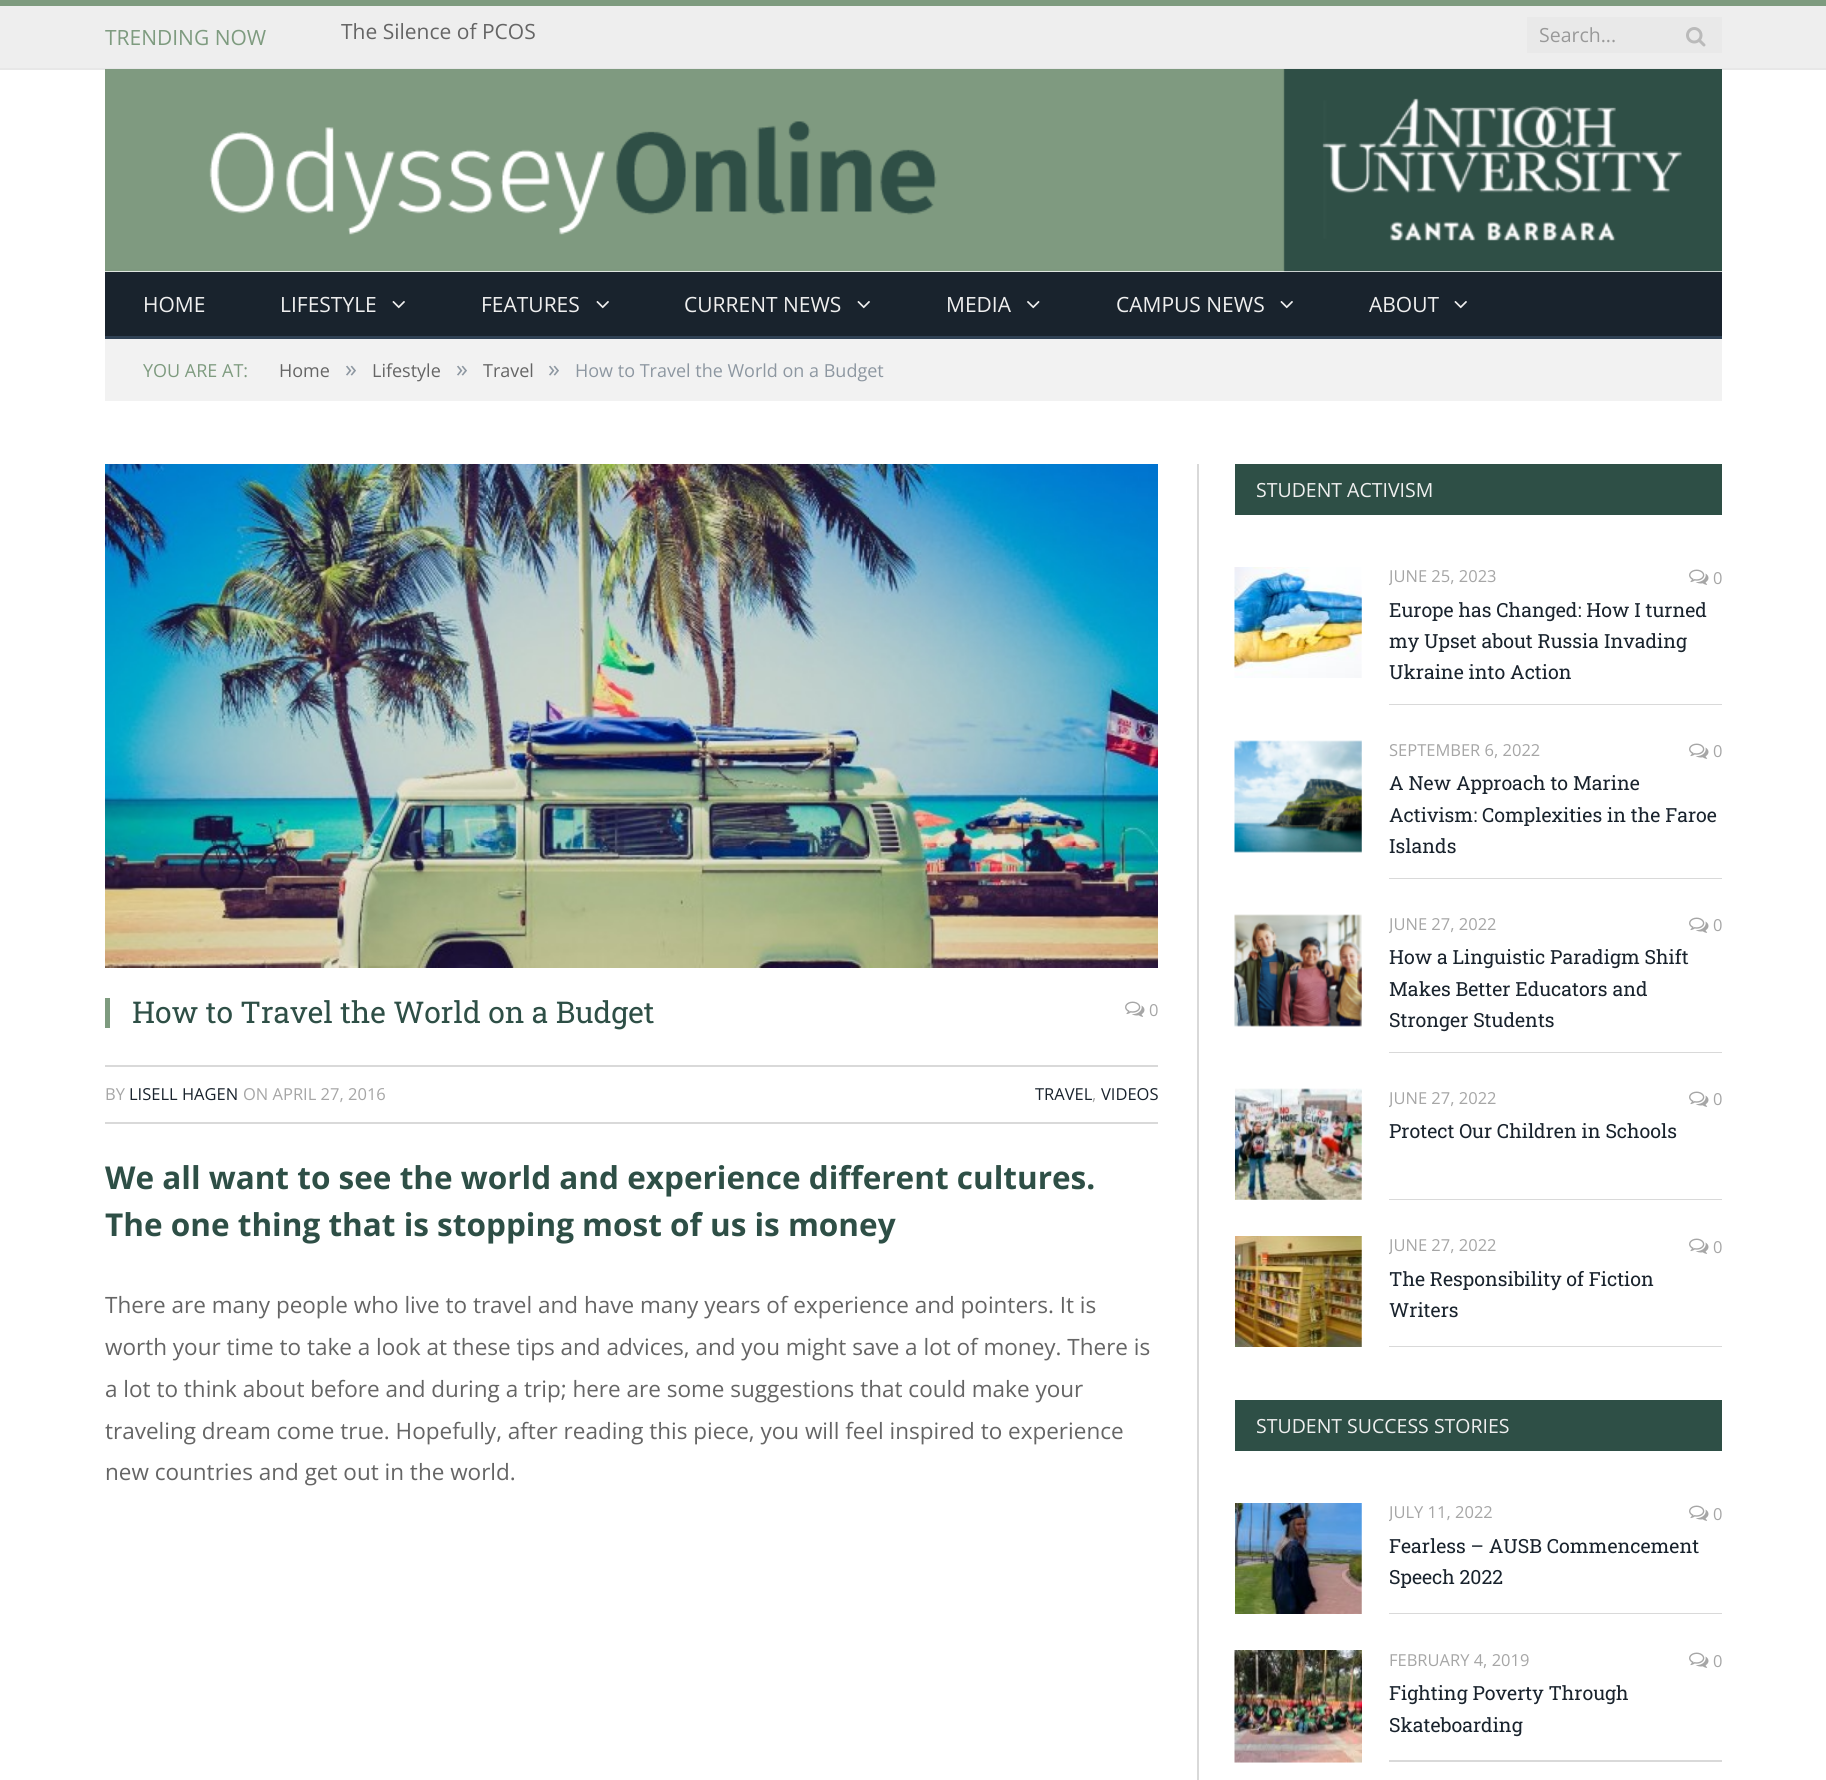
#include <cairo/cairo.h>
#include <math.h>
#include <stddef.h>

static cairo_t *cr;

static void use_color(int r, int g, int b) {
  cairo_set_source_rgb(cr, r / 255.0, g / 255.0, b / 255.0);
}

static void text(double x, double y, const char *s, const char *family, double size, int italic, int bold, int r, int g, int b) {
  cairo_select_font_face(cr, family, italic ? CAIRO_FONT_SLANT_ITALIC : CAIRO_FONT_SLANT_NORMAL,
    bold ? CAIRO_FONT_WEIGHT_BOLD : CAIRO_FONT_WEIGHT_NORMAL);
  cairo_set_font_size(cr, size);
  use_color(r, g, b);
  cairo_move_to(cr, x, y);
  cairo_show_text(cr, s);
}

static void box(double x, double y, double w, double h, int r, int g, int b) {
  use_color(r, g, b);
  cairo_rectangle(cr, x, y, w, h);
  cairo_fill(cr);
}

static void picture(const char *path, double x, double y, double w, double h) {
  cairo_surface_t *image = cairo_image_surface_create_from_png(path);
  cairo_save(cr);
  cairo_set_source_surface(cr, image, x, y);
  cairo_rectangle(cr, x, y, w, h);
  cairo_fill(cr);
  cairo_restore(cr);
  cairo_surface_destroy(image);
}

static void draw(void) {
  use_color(255, 255, 255);
  cairo_paint(cr);
  box(0, 6, 1826, 62, 238, 238, 238);
  box(0, 0, 1826, 6, 126, 155, 127);
  box(0, 68, 1826, 2, 231, 231, 231);
  box(1527, 17, 195, 36, 233, 233, 233);
  picture("img_01.png", 1686, 27, 20, 20);
  picture("img_02.png", 105, 69, 1617, 203);
  box(105, 272, 1617, 64, 25, 35, 45);
  box(105, 336, 1617, 3, 47, 65, 84);
  picture("img_03.png", 392, 301, 13, 8);
  picture("img_03.png", 596, 301, 13, 8);
  picture("img_03.png", 857, 301, 13, 8);
  picture("img_04.png", 1027, 301, 13, 8);
  picture("img_03.png", 1280, 301, 13, 8);
  picture("img_03.png", 1454, 301, 13, 8);
  box(105, 339, 1617, 62, 242, 242, 242);
  picture("img_05.png", 105, 464, 1053, 504);
  box(105, 998, 5, 30, 126, 155, 127);
  picture("img_06.png", 1125, 1001, 20, 16);
  box(105, 1065, 1053, 2, 217, 217, 217);
  box(105, 1122, 1053, 2, 217, 217, 217);
  box(1197, 464, 2, 1316, 217, 217, 217);
  box(1235, 464, 487, 51, 46, 79, 70);
  picture("img_07.png", 1234, 567, 128, 111);
  box(1389, 704, 333, 1, 217, 217, 217);
  picture("img_06.png", 1689, 569, 20, 16);
  picture("img_08.png", 1234, 740, 128, 113);
  box(1389, 878, 333, 1, 217, 217, 217);
  picture("img_06.png", 1689, 743, 20, 16);
  picture("img_09.png", 1234, 914, 128, 113);
  box(1389, 1052, 333, 1, 217, 217, 217);
  picture("img_06.png", 1689, 917, 20, 16);
  picture("img_10.png", 1235, 1088, 127, 112);
  box(1389, 1199, 333, 1, 217, 217, 217);
  picture("img_06.png", 1689, 1091, 20, 16);
  picture("img_11.png", 1235, 1236, 127, 111);
  box(1389, 1346, 333, 1, 217, 217, 217);
  picture("img_06.png", 1689, 1238, 20, 16);
  box(1235, 1400, 487, 51, 46, 79, 70);
  picture("img_12.png", 1235, 1503, 127, 111);
  box(1389, 1613, 333, 1, 217, 217, 217);
  picture("img_06.png", 1689, 1505, 20, 16);
  picture("img_13.png", 1234, 1650, 128, 113);
  box(1389, 1760, 333, 2, 217, 217, 217);
  picture("img_06.png", 1689, 1652, 20, 16);
  text(105, 45, "TRENDING NOW", "Open Sans", 21, 0, 0, 126, 155, 127);
  text(341, 39, "The Silence of PCOS", "Open Sans", 21, 0, 0, 101, 101, 101);
  text(1539, 42, "Search...", "Open Sans", 19.5, 0, 0, 153, 153, 153);
  text(143, 312, "HOME", "Open Sans", 21, 0, 0, 239, 239, 239);
  text(280, 312, "LIFESTYLE", "Open Sans", 21, 0, 0, 239, 239, 239);
  text(481, 312, "FEATURES", "Open Sans", 21, 0, 0, 239, 239, 239);
  text(684, 312, "CURRENT NEWS", "Open Sans", 21, 0, 0, 239, 239, 239);
  text(946, 312, "MEDIA", "Open Sans", 21, 0, 0, 239, 239, 239);
  text(1116, 312, "CAMPUS NEWS", "Open Sans", 21, 0, 0, 239, 239, 239);
  text(1369, 312, "ABOUT", "Open Sans", 21, 0, 0, 239, 239, 239);
  text(143, 377, "YOU ARE AT:", "Open Sans", 18, 0, 0, 126, 155, 127);
  text(279, 377, "Home", "Open Sans", 18, 0, 0, 101, 101, 101);
  text(345, 377, "»", "Open Sans", 24, 0, 0, 141, 151, 161);
  text(372, 377, "Lifestyle", "Open Sans", 18, 0, 0, 101, 101, 101);
  text(456, 377, "»", "Open Sans", 24, 0, 0, 141, 151, 161);
  text(483, 377, "Travel", "Open Sans", 18, 0, 0, 101, 101, 101);
  text(548, 377, "»", "Open Sans", 24, 0, 0, 141, 151, 161);
  text(575, 377, "How to Travel the World on a Budget", "Open Sans", 18, 0, 0, 141, 151, 161);
  text(132, 1023, "How to Travel the World on a Budget", "Roboto Slab", 30, 0, 0, 46, 79, 70);
  text(1149, 1016, "0", "Open Sans", 16.5, 0, 0, 166, 166, 166);
  text(105, 1100, "BY", "Open Sans", 16.5, 0, 0, 166, 166, 166);
  text(129, 1100, "LISELL HAGEN", "Open Sans", 16.5, 0, 0, 25, 35, 45);
  text(243, 1100, "ON APRIL 27, 2016", "Open Sans", 16.5, 0, 0, 166, 166, 166);
  text(1035, 1100, "TRAVEL", "Open Sans", 16.5, 0, 0, 25, 35, 45);
  text(1092, 1100, ",", "Open Sans", 16.5, 0, 0, 166, 166, 166);
  text(1101, 1100, "VIDEOS", "Open Sans", 16.5, 0, 0, 25, 35, 45);
  text(105, 1189, "We all want to see the world and experience different cultures.", "Open Sans", 31.5, 0, 1, 46, 79, 70);
  text(105, 1236, "The one thing that is stopping most of us is money", "Open Sans", 31.5, 0, 1, 46, 79, 70);
  text(105, 1313, "There are many people who live to travel and have many years of experience and pointers. It is", "Open Sans", 22.5, 0, 0, 101, 101, 101);
  text(105, 1355, "worth your time to take a look at these tips and advices, and you might save a lot of money. There is", "Open Sans", 22.5, 0, 0, 101, 101, 101);
  text(105, 1397, "a lot to think about before and during a trip; here are some suggestions that could make your", "Open Sans", 22.5, 0, 0, 101, 101, 101);
  text(105, 1439, "traveling dream come true. Hopefully, after reading this piece, you will feel inspired to experience", "Open Sans", 22.5, 0, 0, 101, 101, 101);
  text(105, 1480, "new countries and get out in the world.", "Open Sans", 22.5, 0, 0, 101, 101, 101);
  text(1256, 497, "STUDENT ACTIVISM", "Open Sans", 19.5, 0, 0, 239, 239, 239);
  cairo_save(cr);
  cairo_rectangle(cr, 1389, 567, 333, 137);
  cairo_clip(cr);
  text(1389, 582, "JUNE 25, 2023", "Open Sans", 16.5, 0, 0, 166, 166, 166);
  cairo_restore(cr);
  text(1713, 584, "0", "Open Sans", 16.5, 0, 0, 166, 166, 166);
  text(1389, 617, "Europe has Changed: How I turned", "Roboto Slab", 19.5, 0, 0, 25, 35, 45);
  text(1389, 648, "my Upset about Russia Invading", "Roboto Slab", 19.5, 0, 0, 25, 35, 45);
  text(1389, 679, "Ukraine into Action", "Roboto Slab", 19.5, 0, 0, 25, 35, 45);
  text(1389, 756, "SEPTEMBER 6, 2022", "Open Sans", 16.5, 0, 0, 166, 166, 166);
  text(1713, 757, "0", "Open Sans", 16.5, 0, 0, 166, 166, 166);
  text(1389, 790, "A New Approach to Marine", "Roboto Slab", 19.5, 0, 0, 25, 35, 45);
  text(1389, 822, "Activism: Complexities in the Faroe", "Roboto Slab", 19.5, 0, 0, 25, 35, 45);
  text(1389, 853, "Islands", "Roboto Slab", 19.5, 0, 0, 25, 35, 45);
  cairo_save(cr);
  cairo_rectangle(cr, 1389, 915, 333, 137);
  cairo_clip(cr);
  text(1389, 930, "JUNE 27, 2022", "Open Sans", 16.5, 0, 0, 166, 166, 166);
  cairo_restore(cr);
  text(1713, 931, "0", "Open Sans", 16.5, 0, 0, 166, 166, 166);
  text(1389, 964, "How a Linguistic Paradigm Shift", "Roboto Slab", 19.5, 0, 0, 25, 35, 45);
  text(1389, 996, "Makes Better Educators and", "Roboto Slab", 19.5, 0, 0, 25, 35, 45);
  text(1389, 1027, "Stronger Students", "Roboto Slab", 19.5, 0, 0, 25, 35, 45);
  cairo_save(cr);
  cairo_rectangle(cr, 1389, 1089, 333, 110);
  cairo_clip(cr);
  text(1389, 1104, "JUNE 27, 2022", "Open Sans", 16.5, 0, 0, 166, 166, 166);
  cairo_restore(cr);
  text(1713, 1105, "0", "Open Sans", 16.5, 0, 0, 166, 166, 166);
  text(1389, 1138, "Protect Our Children in Schools", "Roboto Slab", 19.5, 0, 0, 25, 35, 45);
  cairo_save(cr);
  cairo_rectangle(cr, 1389, 1236, 333, 110);
  cairo_clip(cr);
  text(1389, 1251, "JUNE 27, 2022", "Open Sans", 16.5, 0, 0, 166, 166, 166);
  cairo_restore(cr);
  text(1713, 1253, "0", "Open Sans", 16.5, 0, 0, 166, 166, 166);
  text(1389, 1286, "The Responsibility of Fiction", "Roboto Slab", 19.5, 0, 0, 25, 35, 45);
  text(1389, 1317, "Writers", "Roboto Slab", 19.5, 0, 0, 25, 35, 45);
  text(1256, 1433, "STUDENT SUCCESS STORIES", "Open Sans", 19.5, 0, 0, 239, 239, 239);
  cairo_save(cr);
  cairo_rectangle(cr, 1389, 1503, 333, 110);
  cairo_clip(cr);
  text(1389, 1518, "JULY 11, 2022", "Open Sans", 16.5, 0, 0, 166, 166, 166);
  cairo_restore(cr);
  text(1713, 1520, "0", "Open Sans", 16.5, 0, 0, 166, 166, 166);
  text(1389, 1553, "Fearless – AUSB Commencement", "Roboto Slab", 19.5, 0, 0, 25, 35, 45);
  text(1389, 1584, "Speech 2022", "Roboto Slab", 19.5, 0, 0, 25, 35, 45);
  text(1389, 1666, "FEBRUARY 4, 2019", "Open Sans", 16.5, 0, 0, 166, 166, 166);
  text(1713, 1667, "0", "Open Sans", 16.5, 0, 0, 166, 166, 166);
  text(1389, 1700, "Fighting Poverty Through", "Roboto Slab", 19.5, 0, 0, 25, 35, 45);
  text(1389, 1732, "Skateboarding", "Roboto Slab", 19.5, 0, 0, 25, 35, 45);
}

int main(void) {
  cairo_surface_t *surface = cairo_image_surface_create(CAIRO_FORMAT_RGB24, 1826, 1780);
  cr = cairo_create(surface);
  cairo_font_options_t *options = cairo_font_options_create();
  cairo_font_options_set_hint_metrics(options, CAIRO_HINT_METRICS_OFF);
  cairo_font_options_set_hint_style(options, CAIRO_HINT_STYLE_NONE);
  cairo_set_font_options(cr, options);
  cairo_set_miter_limit(cr, 4);
  draw();
  cairo_surface_write_to_png(surface, "out.png");
  cairo_font_options_destroy(options);
  cairo_destroy(cr);
  cairo_surface_destroy(surface);
  return 0;
}
